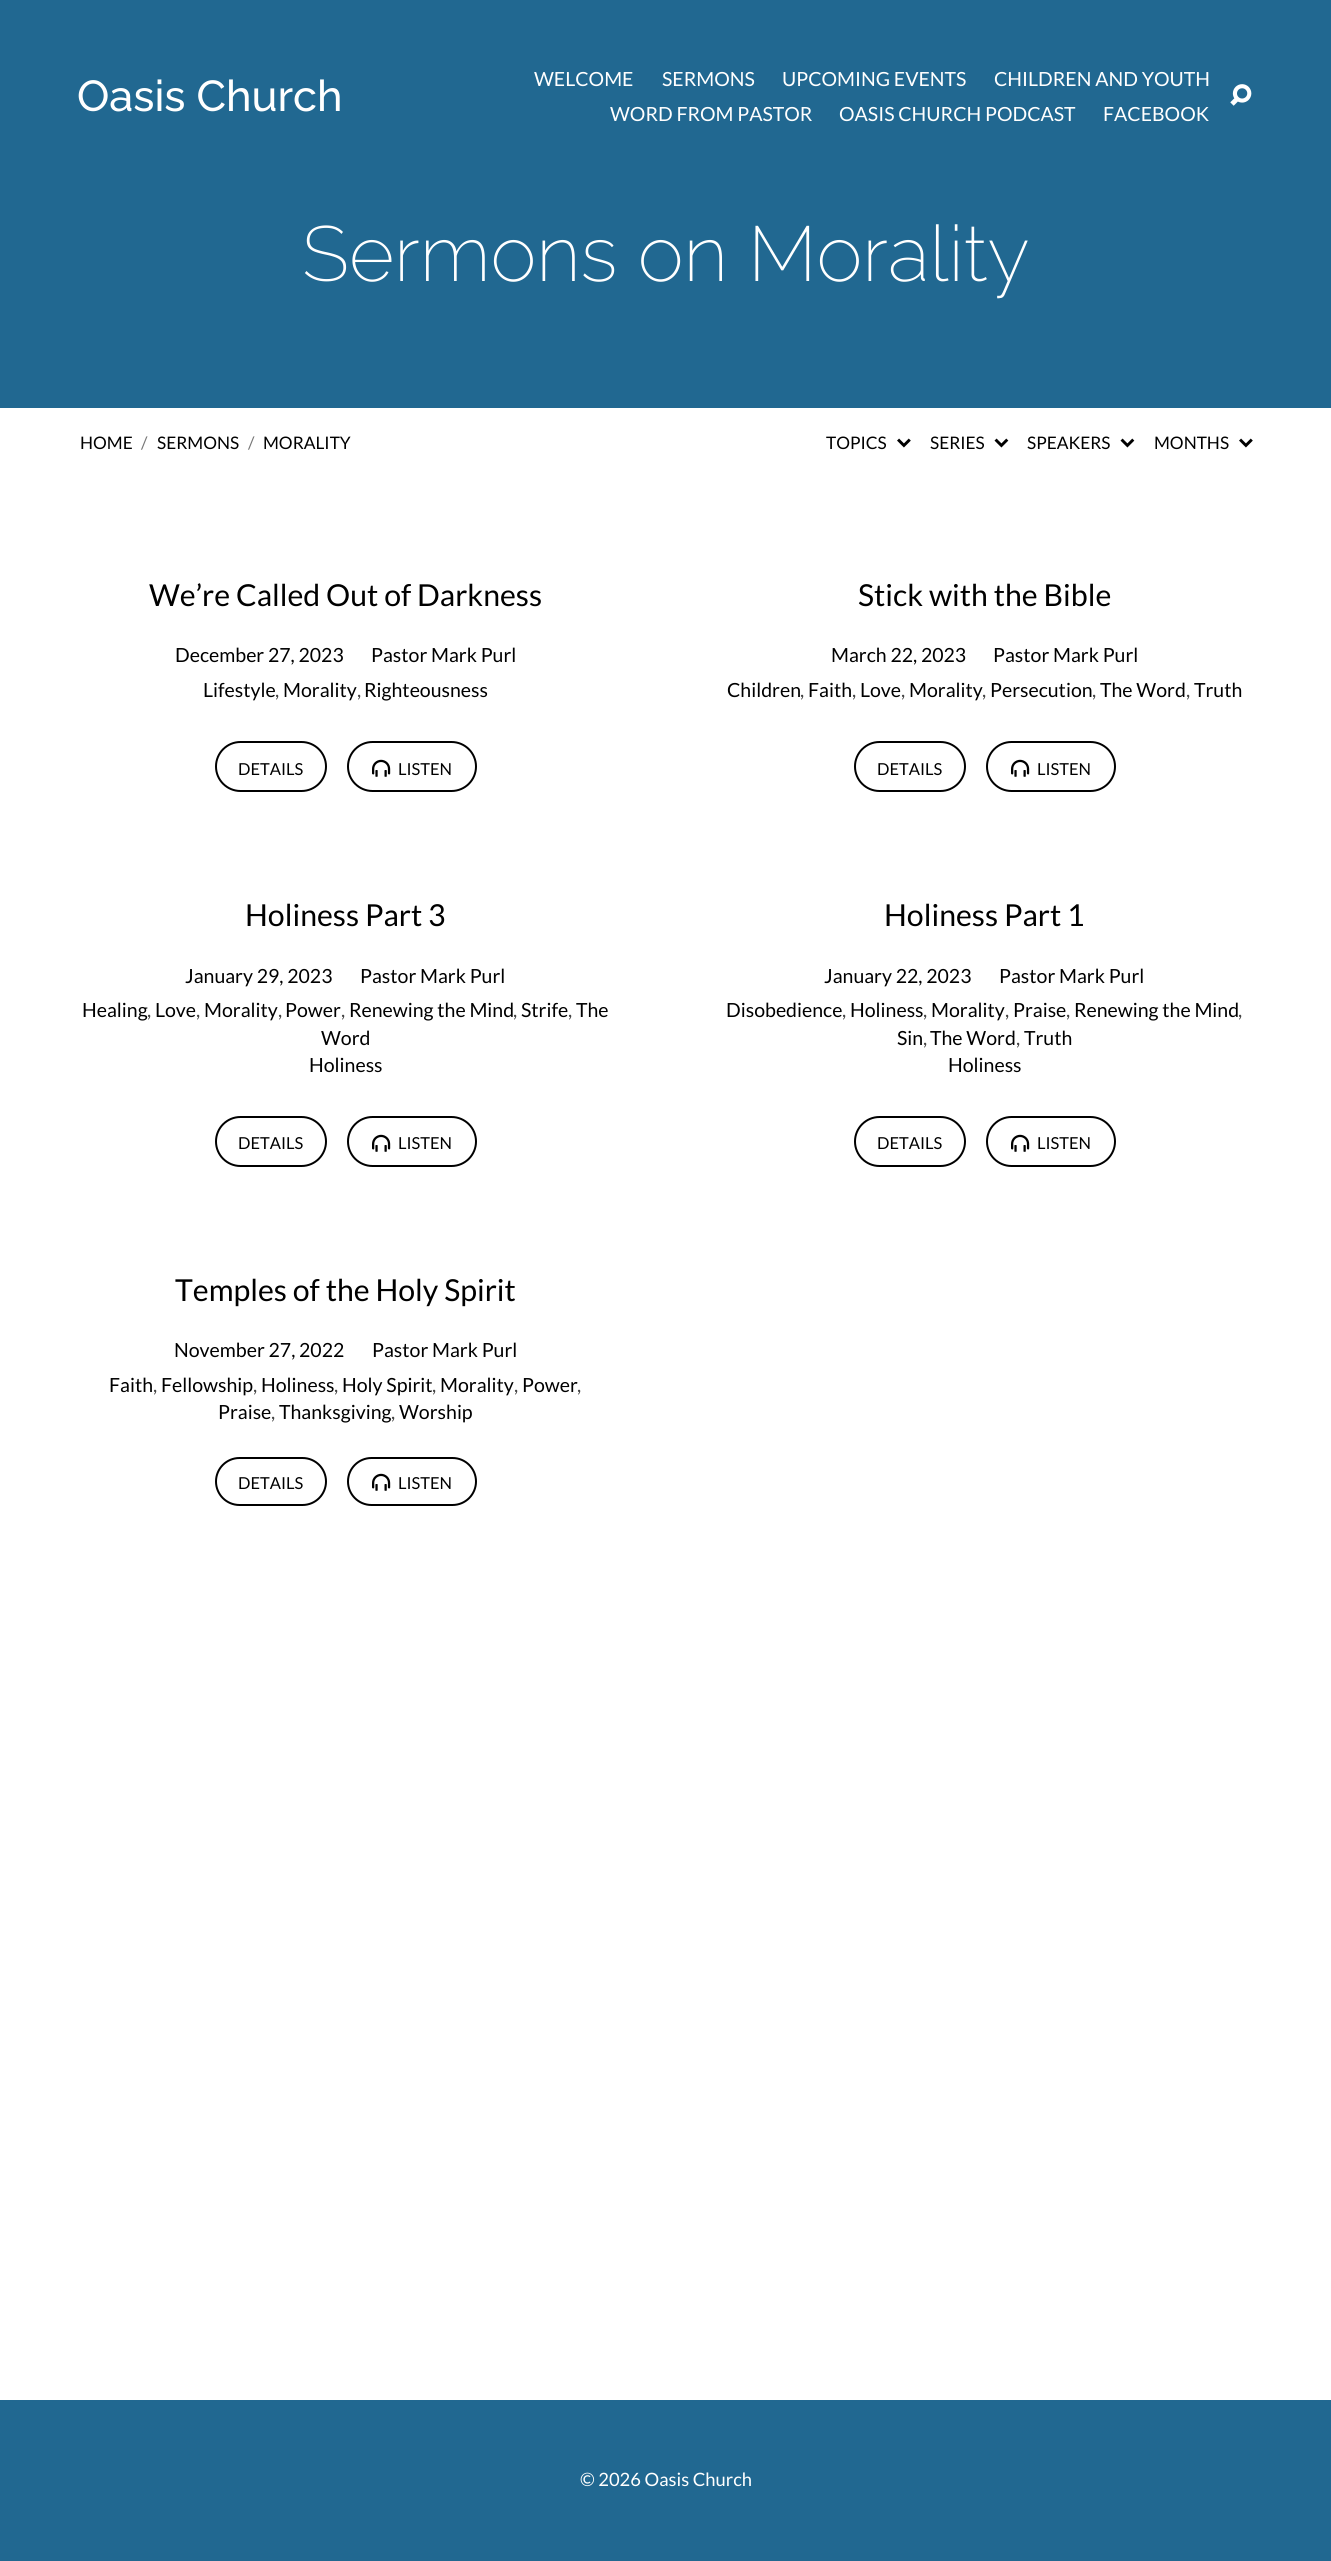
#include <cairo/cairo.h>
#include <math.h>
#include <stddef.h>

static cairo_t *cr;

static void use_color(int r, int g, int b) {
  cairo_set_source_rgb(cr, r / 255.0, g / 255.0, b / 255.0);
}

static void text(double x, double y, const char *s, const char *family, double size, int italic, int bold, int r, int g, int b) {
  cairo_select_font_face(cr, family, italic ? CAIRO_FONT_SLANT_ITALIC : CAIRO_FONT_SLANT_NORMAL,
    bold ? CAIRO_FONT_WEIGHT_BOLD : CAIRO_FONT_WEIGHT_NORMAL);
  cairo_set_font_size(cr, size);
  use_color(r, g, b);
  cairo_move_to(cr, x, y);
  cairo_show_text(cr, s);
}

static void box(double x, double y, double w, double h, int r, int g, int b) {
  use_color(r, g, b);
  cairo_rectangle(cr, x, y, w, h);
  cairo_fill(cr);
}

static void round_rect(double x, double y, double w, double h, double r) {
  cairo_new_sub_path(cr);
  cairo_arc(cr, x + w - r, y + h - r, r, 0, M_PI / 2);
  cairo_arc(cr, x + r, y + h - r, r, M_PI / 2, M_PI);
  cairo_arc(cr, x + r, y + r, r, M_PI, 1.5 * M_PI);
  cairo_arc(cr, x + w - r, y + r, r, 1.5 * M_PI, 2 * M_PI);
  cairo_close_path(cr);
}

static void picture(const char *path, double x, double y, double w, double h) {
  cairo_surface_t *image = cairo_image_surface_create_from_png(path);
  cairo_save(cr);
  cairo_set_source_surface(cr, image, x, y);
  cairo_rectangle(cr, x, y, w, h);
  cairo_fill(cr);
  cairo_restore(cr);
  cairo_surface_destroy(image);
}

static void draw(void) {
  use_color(255, 255, 255);
  cairo_paint(cr);
  box(0, 0, 1331, 408, 33, 104, 145);
  picture("img_01.png", 1230, 84, 22, 22);
  picture("img_02.png", 897, 438, 14, 10);
  picture("img_03.png", 994, 438, 15, 10);
  picture("img_03.png", 1120, 438, 15, 10);
  picture("img_02.png", 1239, 438, 14, 10);
  round_rect(216, 742, 110, 49, 24.5);
  use_color(0, 0, 0);
  cairo_stroke(cr);
  round_rect(348, 742, 128, 49, 24.5);
  cairo_stroke(cr);
  picture("img_04.png", 372, 759, 19, 18);
  round_rect(855, 742, 110, 49, 24.5);
  cairo_stroke(cr);
  round_rect(987, 742, 128, 49, 24.5);
  cairo_stroke(cr);
  picture("img_04.png", 1011, 759, 19, 18);
  round_rect(216, 1117, 110, 49, 24.5);
  cairo_stroke(cr);
  round_rect(348, 1117, 128, 49, 24.5);
  cairo_stroke(cr);
  picture("img_04.png", 372, 1134, 19, 18);
  round_rect(855, 1117, 110, 49, 24.5);
  cairo_stroke(cr);
  round_rect(987, 1117, 128, 49, 24.5);
  cairo_stroke(cr);
  picture("img_04.png", 1011, 1134, 19, 18);
  round_rect(216, 1458, 110, 47, 23.5);
  cairo_stroke(cr);
  round_rect(348, 1458, 128, 47, 23.5);
  cairo_stroke(cr);
  picture("img_04.png", 372, 1473, 19, 18);
  box(0, 2400, 1331, 161, 33, 104, 145);
  text(77, 111, "Oasis Church", "Raleway Medium", 43.25, 0, 0, 255, 255, 255);
  text(534, 86, "WELCOME", "Lato", 19.5, 0, 0, 255, 255, 255);
  text(662, 86, "SERMONS", "Lato", 19.5, 0, 0, 255, 255, 255);
  text(782, 86, "UPCOMING EVENTS", "Lato", 19.5, 0, 0, 255, 255, 255);
  text(994, 86, "CHILDREN AND YOUTH", "Lato", 19.5, 0, 0, 255, 255, 255);
  text(610, 121, "WORD FROM PASTOR", "Lato", 19.5, 0, 0, 255, 255, 255);
  text(839, 121, "OASIS CHURCH PODCAST", "Lato", 19.5, 0, 0, 255, 255, 255);
  text(1103, 121, "FACEBOOK", "Lato", 19.5, 0, 0, 255, 255, 255);
  text(302, 281, "Sermons on Morality", "Raleway ExtraLight", 77.75, 0, 0, 255, 255, 255);
  text(80, 449, "HOME", "Lato", 17.25, 0, 0, 0, 0, 0);
  text(141, 449, "/", "Lato", 17.25, 0, 0, 119, 119, 119);
  text(157, 449, "SERMONS", "Lato", 17.25, 0, 0, 0, 0, 0);
  text(248, 449, "/", "Lato", 17.25, 0, 0, 119, 119, 119);
  text(263, 449, "MORALITY", "Lato", 17.25, 0, 0, 0, 0, 0);
  text(826, 449, "TOPICS", "Lato", 17.25, 0, 0, 0, 0, 0);
  text(930, 449, "SERIES", "Lato", 17.25, 0, 0, 0, 0, 0);
  text(1027, 449, "SPEAKERS", "Lato", 17.25, 0, 0, 0, 0, 0);
  text(1154, 449, "MONTHS", "Lato", 17.25, 0, 0, 0, 0, 0);
  text(149, 606, "We’re Called Out of Darkness", "Lato", 30.25, 0, 0, 0, 0, 0);
  text(175, 662, "December 27, 2023", "Lato", 19.5, 0, 0, 0, 0, 0);
  text(371, 662, "Pastor Mark Purl", "Lato", 19.5, 0, 0, 0, 0, 0);
  text(203, 697, "Lifestyle", "Lato", 19.5, 0, 0, 0, 0, 0);
  text(275, 697, ",", "Lato", 19.5, 0, 0, 68, 68, 68);
  text(283, 697, "Morality", "Lato", 19.5, 0, 0, 0, 0, 0);
  text(357, 697, ",", "Lato", 19.5, 0, 0, 68, 68, 68);
  text(364, 697, "Righteousness", "Lato", 19.5, 0, 0, 0, 0, 0);
  text(238, 775, "DETAILS", "Lato", 16.5, 0, 0, 0, 0, 0);
  text(398, 775, "LISTEN", "Lato", 16.5, 0, 0, 0, 0, 0);
  text(858, 606, "Stick with the Bible", "Lato", 30.25, 0, 0, 0, 0, 0);
  text(831, 662, "March 22, 2023", "Lato", 19.5, 0, 0, 0, 0, 0);
  text(993, 662, "Pastor Mark Purl", "Lato", 19.5, 0, 0, 0, 0, 0);
  text(727, 697, "Children", "Lato", 19.5, 0, 0, 0, 0, 0);
  text(800, 697, ",", "Lato", 19.5, 0, 0, 68, 68, 68);
  text(808, 697, "Faith", "Lato", 19.5, 0, 0, 0, 0, 0);
  text(852, 697, ",", "Lato", 19.5, 0, 0, 68, 68, 68);
  text(860, 697, "Love", "Lato", 19.5, 0, 0, 0, 0, 0);
  text(901, 697, ",", "Lato", 19.5, 0, 0, 68, 68, 68);
  text(909, 697, "Morality", "Lato", 19.5, 0, 0, 0, 0, 0);
  text(982, 697, ",", "Lato", 19.5, 0, 0, 68, 68, 68);
  text(990, 697, "Persecution", "Lato", 19.5, 0, 0, 0, 0, 0);
  text(1092, 697, ",", "Lato", 19.5, 0, 0, 68, 68, 68);
  text(1100, 697, "The Word", "Lato", 19.5, 0, 0, 0, 0, 0);
  text(1186, 697, ",", "Lato", 19.5, 0, 0, 68, 68, 68);
  text(1194, 697, "Truth", "Lato", 19.5, 0, 0, 0, 0, 0);
  text(877, 775, "DETAILS", "Lato", 16.5, 0, 0, 0, 0, 0);
  text(1037, 775, "LISTEN", "Lato", 16.5, 0, 0, 0, 0, 0);
  text(245, 926, "Holiness Part 3", "Lato", 30.25, 0, 0, 0, 0, 0);
  text(185, 983, "January 29, 2023", "Lato", 19.5, 0, 0, 0, 0, 0);
  text(360, 983, "Pastor Mark Purl", "Lato", 19.5, 0, 0, 0, 0, 0);
  text(82, 1017, "Healing", "Lato", 19.5, 0, 0, 0, 0, 0);
  text(147, 1017, ",", "Lato", 19.5, 0, 0, 68, 68, 68);
  text(155, 1017, "Love", "Lato", 19.5, 0, 0, 0, 0, 0);
  text(196, 1017, ",", "Lato", 19.5, 0, 0, 68, 68, 68);
  text(204, 1017, "Morality", "Lato", 19.5, 0, 0, 0, 0, 0);
  text(278, 1017, ",", "Lato", 19.5, 0, 0, 68, 68, 68);
  text(285, 1017, "Power", "Lato", 19.5, 0, 0, 0, 0, 0);
  text(341, 1017, ",", "Lato", 19.5, 0, 0, 68, 68, 68);
  text(349, 1017, "Renewing the Mind", "Lato", 19.5, 0, 0, 0, 0, 0);
  text(513, 1017, ",", "Lato", 19.5, 0, 0, 68, 68, 68);
  text(521, 1017, "Strife", "Lato", 19.5, 0, 0, 0, 0, 0);
  text(568, 1017, ",", "Lato", 19.5, 0, 0, 68, 68, 68);
  text(576, 1017, "The", "Lato", 19.5, 0, 0, 0, 0, 0);
  text(321, 1045, "Word", "Lato", 19.5, 0, 0, 0, 0, 0);
  text(309, 1072, "Holiness", "Lato", 19.5, 0, 0, 0, 0, 0);
  text(238, 1149, "DETAILS", "Lato", 16.5, 0, 0, 0, 0, 0);
  text(398, 1149, "LISTEN", "Lato", 16.5, 0, 0, 0, 0, 0);
  text(884, 926, "Holiness Part 1", "Lato", 30.25, 0, 0, 0, 0, 0);
  text(824, 983, "January 22, 2023", "Lato", 19.5, 0, 0, 0, 0, 0);
  text(999, 983, "Pastor Mark Purl", "Lato", 19.5, 0, 0, 0, 0, 0);
  text(726, 1017, "Disobedience", "Lato", 19.5, 0, 0, 0, 0, 0);
  text(842, 1017, ",", "Lato", 19.5, 0, 0, 68, 68, 68);
  text(850, 1017, "Holiness", "Lato", 19.5, 0, 0, 0, 0, 0);
  text(923, 1017, ",", "Lato", 19.5, 0, 0, 68, 68, 68);
  text(931, 1017, "Morality", "Lato", 19.5, 0, 0, 0, 0, 0);
  text(1005, 1017, ",", "Lato", 19.5, 0, 0, 68, 68, 68);
  text(1013, 1017, "Praise", "Lato", 19.5, 0, 0, 0, 0, 0);
  text(1066, 1017, ",", "Lato", 19.5, 0, 0, 68, 68, 68);
  text(1074, 1017, "Renewing the Mind", "Lato", 19.5, 0, 0, 0, 0, 0);
  text(1238, 1017, ",", "Lato", 19.5, 0, 0, 68, 68, 68);
  text(897, 1045, "Sin", "Lato", 19.5, 0, 0, 0, 0, 0);
  text(923, 1045, ",", "Lato", 19.5, 0, 0, 68, 68, 68);
  text(930, 1045, "The Word", "Lato", 19.5, 0, 0, 0, 0, 0);
  text(1016, 1045, ",", "Lato", 19.5, 0, 0, 68, 68, 68);
  text(1024, 1045, "Truth", "Lato", 19.5, 0, 0, 0, 0, 0);
  text(948, 1072, "Holiness", "Lato", 19.5, 0, 0, 0, 0, 0);
  text(877, 1149, "DETAILS", "Lato", 16.5, 0, 0, 0, 0, 0);
  text(1037, 1149, "LISTEN", "Lato", 16.5, 0, 0, 0, 0, 0);
  text(175, 1301, "Temples of the Holy Spirit", "Lato", 30.25, 0, 0, 0, 0, 0);
  text(174, 1357, "November 27, 2022", "Lato", 19.5, 0, 0, 0, 0, 0);
  text(372, 1357, "Pastor Mark Purl", "Lato", 19.5, 0, 0, 0, 0, 0);
  text(109, 1392, "Faith", "Lato", 19.5, 0, 0, 0, 0, 0);
  text(153, 1392, ",", "Lato", 19.5, 0, 0, 68, 68, 68);
  text(161, 1392, "Fellowship", "Lato", 19.5, 0, 0, 0, 0, 0);
  text(253, 1392, ",", "Lato", 19.5, 0, 0, 68, 68, 68);
  text(261, 1392, "Holiness", "Lato", 19.5, 0, 0, 0, 0, 0);
  text(334, 1392, ",", "Lato", 19.5, 0, 0, 68, 68, 68);
  text(342, 1392, "Holy Spirit", "Lato", 19.5, 0, 0, 0, 0, 0);
  text(432, 1392, ",", "Lato", 19.5, 0, 0, 68, 68, 68);
  text(440, 1392, "Morality", "Lato", 19.5, 0, 0, 0, 0, 0);
  text(514, 1392, ",", "Lato", 19.5, 0, 0, 68, 68, 68);
  text(522, 1392, "Power", "Lato", 19.5, 0, 0, 0, 0, 0);
  text(577, 1392, ",", "Lato", 19.5, 0, 0, 68, 68, 68);
  text(218, 1419, "Praise", "Lato", 19.5, 0, 0, 0, 0, 0);
  text(271, 1419, ",", "Lato", 19.5, 0, 0, 68, 68, 68);
  text(279, 1419, "Thanksgiving", "Lato", 19.5, 0, 0, 0, 0, 0);
  text(391, 1419, ",", "Lato", 19.5, 0, 0, 68, 68, 68);
  text(399, 1419, "Worship", "Lato", 19.5, 0, 0, 0, 0, 0);
  text(238, 1489, "DETAILS", "Lato", 16.5, 0, 0, 0, 0, 0);
  text(398, 1489, "LISTEN", "Lato", 16.5, 0, 0, 0, 0, 0);
  text(580, 2486, "© 2026 Oasis Church", "Lato", 18.4, 0, 0, 255, 255, 255);
}

int main(void) {
  cairo_surface_t *surface = cairo_image_surface_create(CAIRO_FORMAT_RGB24, 1331, 2561);
  cr = cairo_create(surface);
  cairo_font_options_t *options = cairo_font_options_create();
  cairo_font_options_set_hint_metrics(options, CAIRO_HINT_METRICS_OFF);
  cairo_font_options_set_hint_style(options, CAIRO_HINT_STYLE_NONE);
  cairo_set_font_options(cr, options);
  cairo_set_miter_limit(cr, 4);
  draw();
  cairo_surface_write_to_png(surface, "out.png");
  cairo_font_options_destroy(options);
  cairo_destroy(cr);
  cairo_surface_destroy(surface);
  return 0;
}
